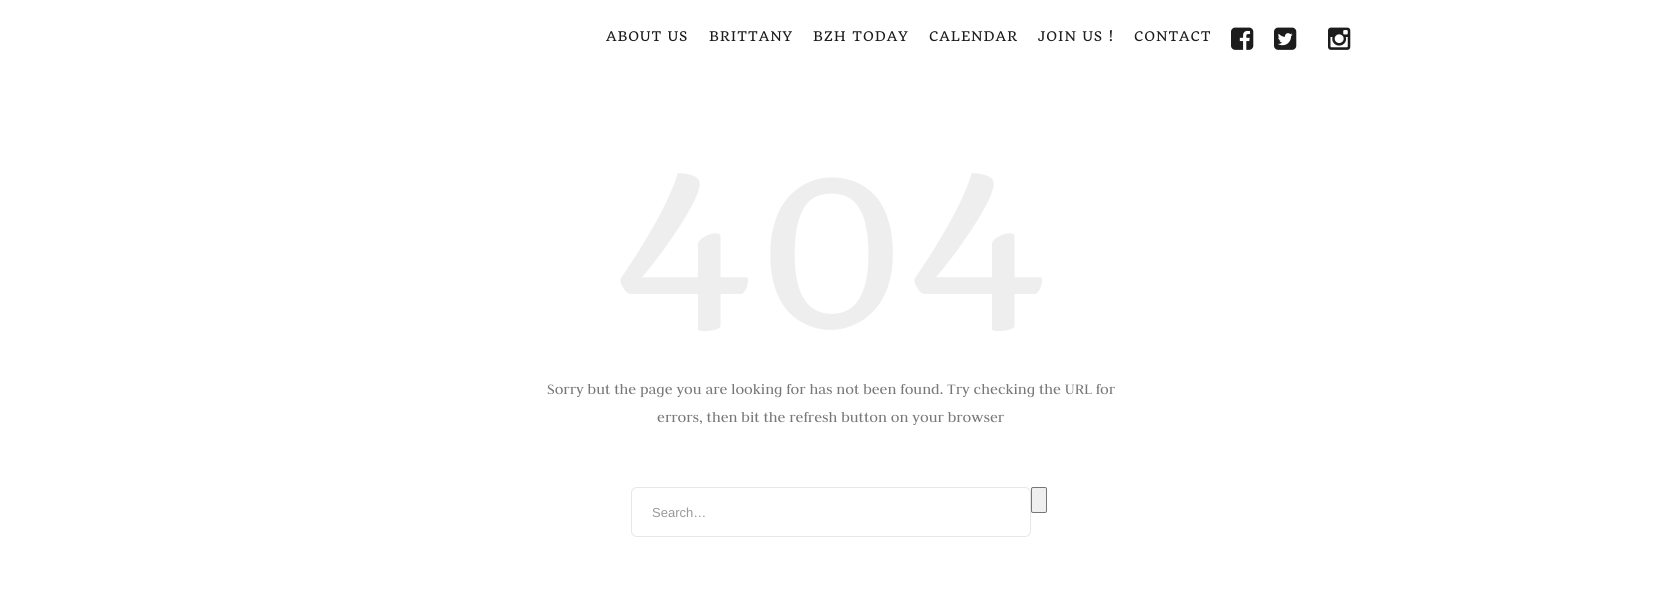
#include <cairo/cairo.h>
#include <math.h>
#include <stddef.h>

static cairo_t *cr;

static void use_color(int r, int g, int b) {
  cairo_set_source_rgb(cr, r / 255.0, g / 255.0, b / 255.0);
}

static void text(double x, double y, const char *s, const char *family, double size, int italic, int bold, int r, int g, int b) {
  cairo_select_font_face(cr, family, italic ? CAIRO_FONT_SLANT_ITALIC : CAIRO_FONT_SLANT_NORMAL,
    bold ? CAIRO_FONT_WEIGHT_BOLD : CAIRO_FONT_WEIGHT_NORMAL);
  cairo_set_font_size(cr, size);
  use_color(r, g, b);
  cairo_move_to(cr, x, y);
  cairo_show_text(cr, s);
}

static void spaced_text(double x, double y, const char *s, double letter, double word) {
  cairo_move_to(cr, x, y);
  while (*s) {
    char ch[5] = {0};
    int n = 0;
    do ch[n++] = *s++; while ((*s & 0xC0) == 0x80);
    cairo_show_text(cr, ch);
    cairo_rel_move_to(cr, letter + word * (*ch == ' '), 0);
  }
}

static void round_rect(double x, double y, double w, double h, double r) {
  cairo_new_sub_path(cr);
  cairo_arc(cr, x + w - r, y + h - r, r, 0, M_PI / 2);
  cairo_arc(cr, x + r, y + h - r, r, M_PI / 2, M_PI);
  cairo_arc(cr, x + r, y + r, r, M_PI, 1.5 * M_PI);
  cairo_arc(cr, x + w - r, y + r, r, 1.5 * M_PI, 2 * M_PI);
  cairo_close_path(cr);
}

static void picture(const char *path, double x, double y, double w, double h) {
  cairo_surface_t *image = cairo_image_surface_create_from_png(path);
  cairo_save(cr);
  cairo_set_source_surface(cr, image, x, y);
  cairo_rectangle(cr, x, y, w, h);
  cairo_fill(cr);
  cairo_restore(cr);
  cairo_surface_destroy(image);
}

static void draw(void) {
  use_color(255, 255, 255);
  cairo_paint(cr);
  picture("img_01.png", 1231, 27, 23, 23);
  picture("img_02.png", 1274, 27, 23, 23);
  picture("img_03.png", 1328, 27, 23, 23);
  round_rect(631.5, 487.5, 399, 49, 5.5);
  use_color(231, 231, 231);
  cairo_set_line_width(cr, 1);
  cairo_stroke(cr);
  use_color(239, 239, 239);
  round_rect(1031.5, 487.5, 15, 25, 1.5);
  cairo_fill_preserve(cr);
  use_color(118, 118, 118);
  cairo_stroke(cr);
  cairo_select_font_face(cr, "Quando", CAIRO_FONT_SLANT_NORMAL, CAIRO_FONT_WEIGHT_NORMAL);
  cairo_set_font_size(cr, 13);
  use_color(28, 28, 28);
  spaced_text(606, 41, "ABOUT US", 1, 0);
  spaced_text(709, 41, "BRITTANY", 1, 0);
  spaced_text(813, 41, "BZH TODAY", 1, 0);
  spaced_text(929, 41, "CALENDAR", 1, 0);
  spaced_text(1038, 41, "JOIN US !", 1, 0);
  spaced_text(1134, 41, "CONTACT", 1, 0);
  text(612, 328, "404", "Quando", 200, 0, 0, 238, 238, 238);
  text(547, 394, "Sorry but the page you are looking for has not been found. Try checking the URL for", "Judson", 16, 0, 0, 119, 119, 119);
  text(657, 422, "errors, then bit the refresh button on your browser", "Judson", 16, 0, 0, 119, 119, 119);
  text(652, 517, "Search…", "Liberation Sans", 13, 0, 0, 153, 153, 153);
}

int main(void) {
  cairo_surface_t *surface = cairo_image_surface_create(CAIRO_FORMAT_RGB24, 1662, 603);
  cr = cairo_create(surface);
  cairo_font_options_t *options = cairo_font_options_create();
  cairo_font_options_set_hint_metrics(options, CAIRO_HINT_METRICS_OFF);
  cairo_font_options_set_hint_style(options, CAIRO_HINT_STYLE_NONE);
  cairo_set_font_options(cr, options);
  cairo_set_miter_limit(cr, 4);
  draw();
  cairo_surface_write_to_png(surface, "out.png");
  cairo_font_options_destroy(options);
  cairo_destroy(cr);
  cairo_surface_destroy(surface);
  return 0;
}
